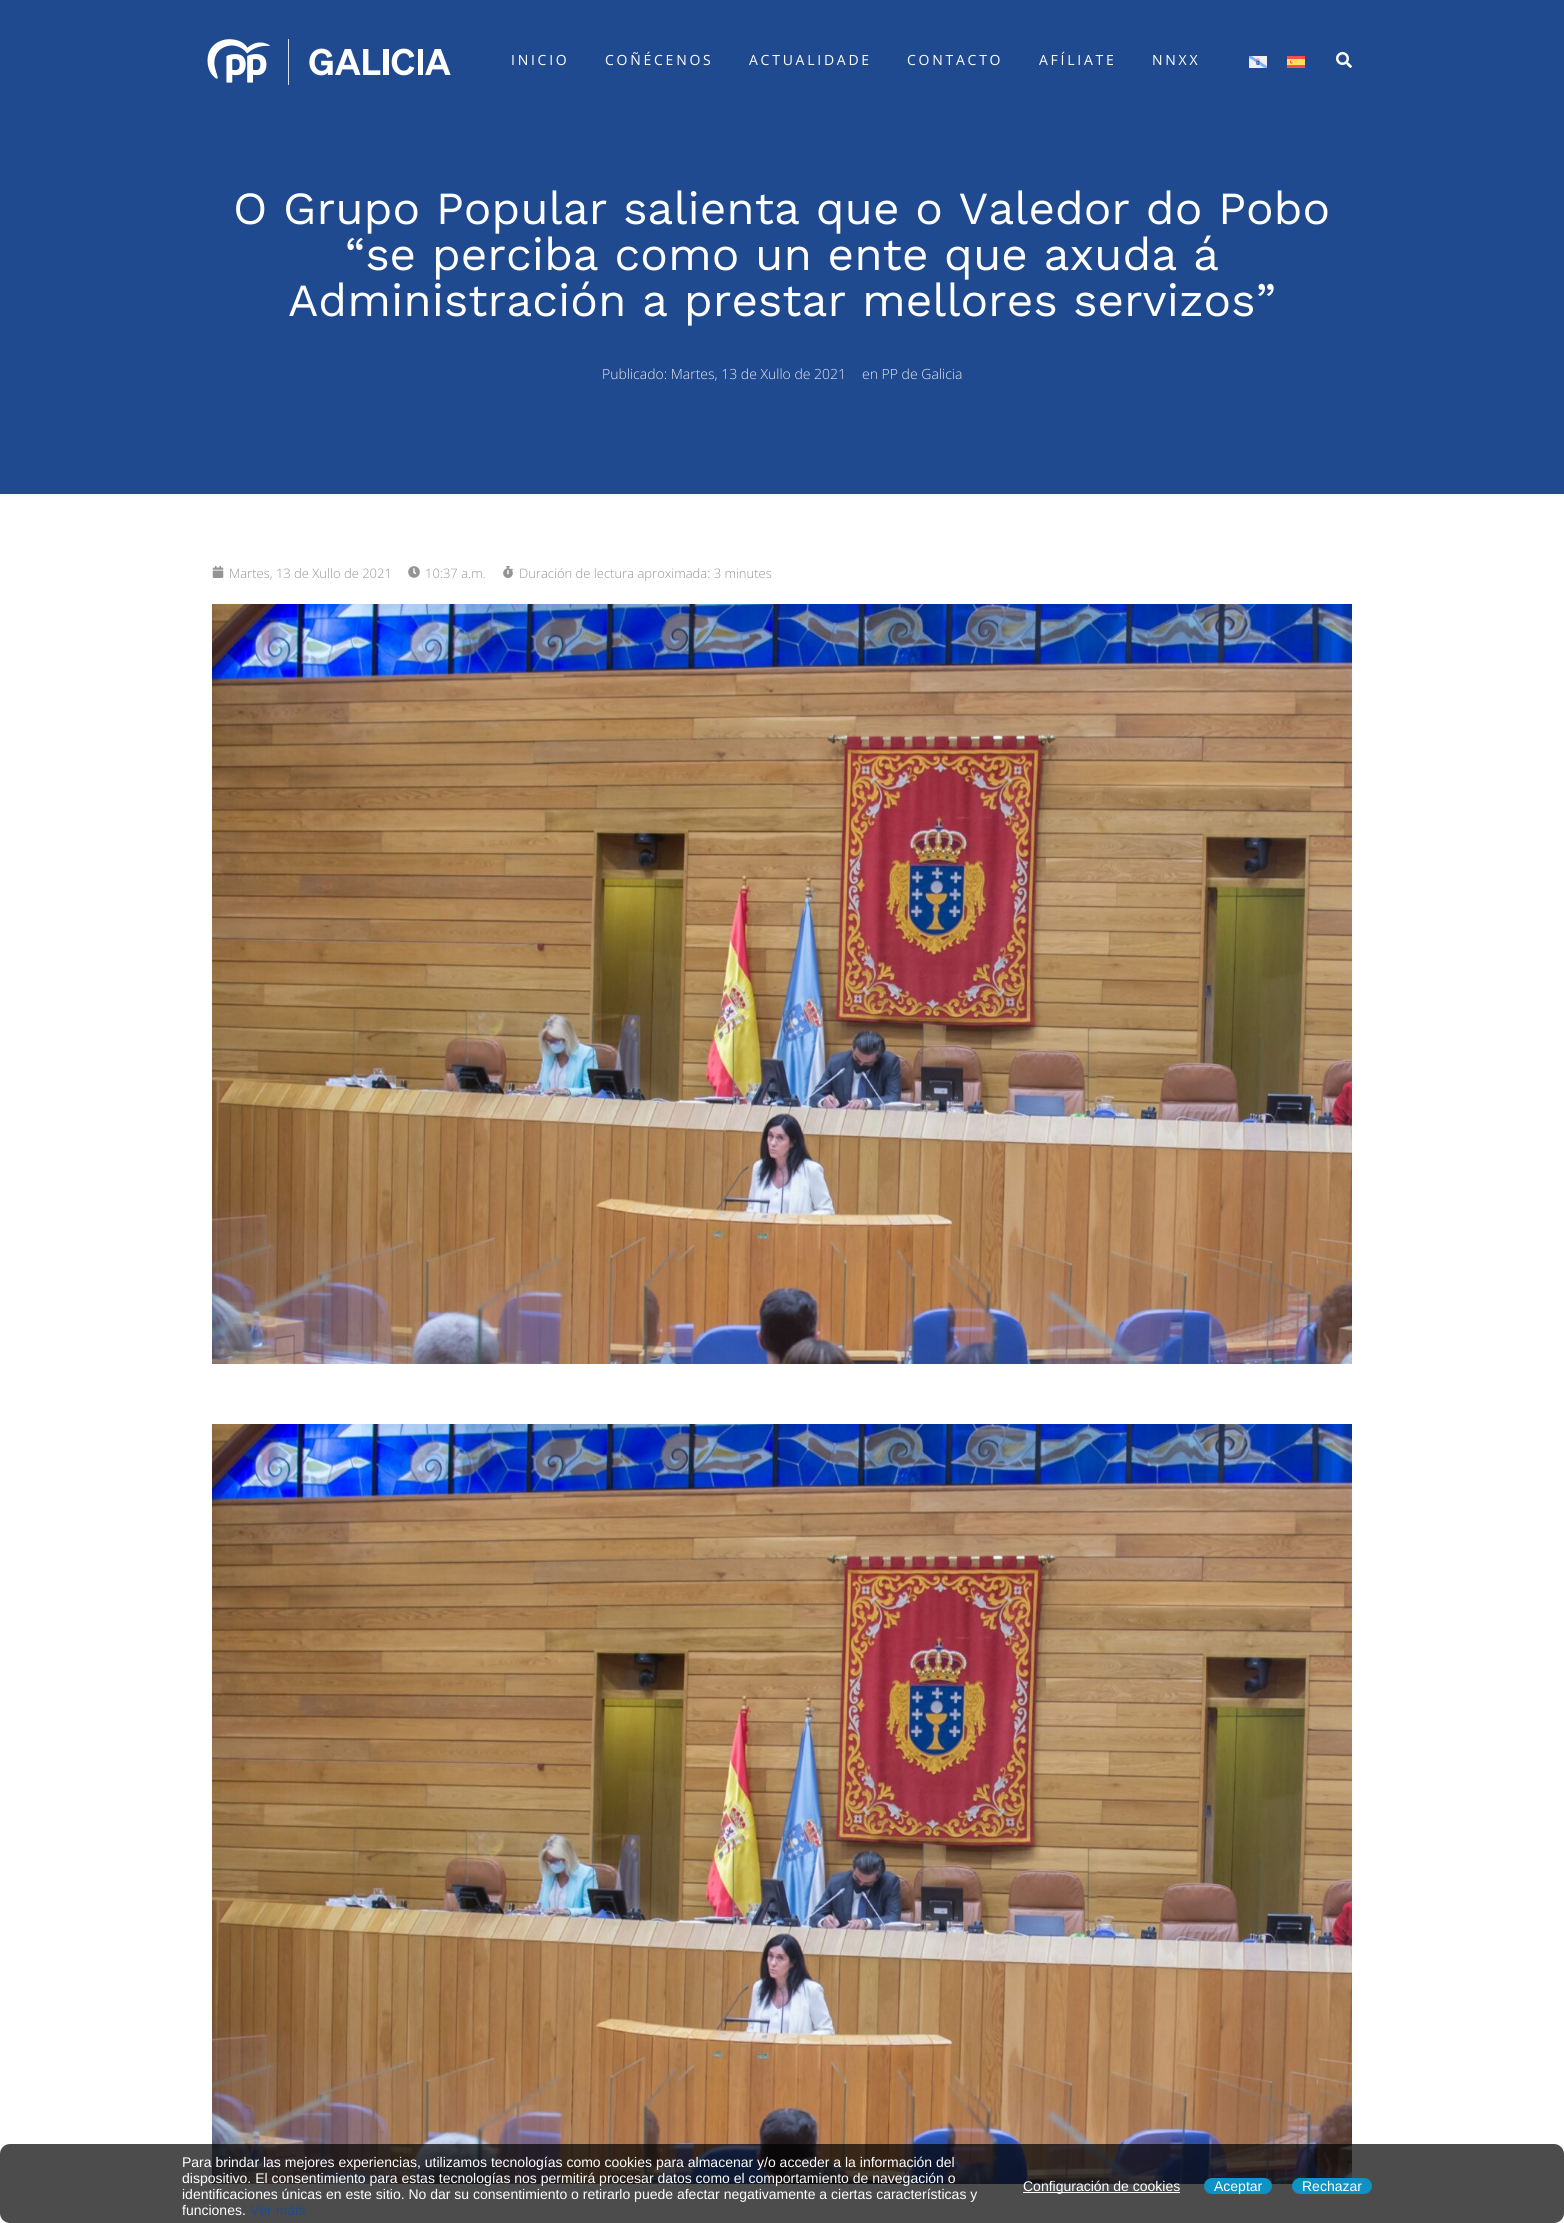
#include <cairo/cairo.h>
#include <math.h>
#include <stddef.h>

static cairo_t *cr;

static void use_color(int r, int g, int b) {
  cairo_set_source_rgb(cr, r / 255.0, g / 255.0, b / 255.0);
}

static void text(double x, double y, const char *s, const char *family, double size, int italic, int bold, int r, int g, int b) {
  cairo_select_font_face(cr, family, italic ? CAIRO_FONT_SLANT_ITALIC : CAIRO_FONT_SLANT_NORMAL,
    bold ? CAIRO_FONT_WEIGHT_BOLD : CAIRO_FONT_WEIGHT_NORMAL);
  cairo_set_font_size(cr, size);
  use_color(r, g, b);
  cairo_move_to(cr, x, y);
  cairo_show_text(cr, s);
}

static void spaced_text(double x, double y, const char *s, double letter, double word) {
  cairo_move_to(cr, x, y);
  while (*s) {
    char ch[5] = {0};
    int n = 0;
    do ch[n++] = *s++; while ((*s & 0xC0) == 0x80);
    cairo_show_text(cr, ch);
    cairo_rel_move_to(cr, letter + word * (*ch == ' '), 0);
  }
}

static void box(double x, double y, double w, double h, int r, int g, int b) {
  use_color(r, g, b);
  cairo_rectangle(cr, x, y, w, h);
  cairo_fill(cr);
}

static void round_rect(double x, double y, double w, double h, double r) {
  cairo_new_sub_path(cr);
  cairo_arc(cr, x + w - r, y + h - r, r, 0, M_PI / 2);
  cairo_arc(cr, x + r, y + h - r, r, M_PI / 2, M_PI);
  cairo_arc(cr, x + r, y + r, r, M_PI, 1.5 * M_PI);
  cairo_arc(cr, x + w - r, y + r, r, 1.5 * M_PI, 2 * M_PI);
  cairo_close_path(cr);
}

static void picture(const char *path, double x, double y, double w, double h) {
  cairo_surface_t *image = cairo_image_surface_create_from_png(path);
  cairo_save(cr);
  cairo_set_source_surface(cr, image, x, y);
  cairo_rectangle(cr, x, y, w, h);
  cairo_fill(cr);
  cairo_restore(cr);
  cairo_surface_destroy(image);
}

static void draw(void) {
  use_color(255, 255, 255);
  cairo_paint(cr);
  box(0, 0, 1564, 494, 31, 74, 143);
  picture("img_01.png", 207, 39, 244, 46);
  picture("img_02.png", 1249, 56, 18, 12);
  picture("img_03.png", 1287, 56, 18, 12);
  picture("img_04.png", 1336, 52, 16, 16);
  picture("img_05.png", 212, 566, 12, 12);
  picture("img_06.png", 408, 566, 12, 12);
  picture("img_07.png", 503, 566, 10, 12);
  picture("img_08.png", 212, 604, 1140, 760);
  picture("img_08.png", 212, 1424, 1140, 760);
  cairo_set_source_rgba(cr, 0, 0, 0, 0.7);
  round_rect(0, 2144, 1564, 79, 10);
  cairo_fill(cr);
  box(1023, 2192, 157, 1, 255, 255, 255);
  use_color(13, 146, 195);
  round_rect(1204, 2178, 68, 16, 8);
  cairo_fill(cr);
  round_rect(1292, 2178, 80, 16, 8);
  cairo_fill(cr);
  cairo_select_font_face(cr, "Open Sans", CAIRO_FONT_SLANT_NORMAL, CAIRO_FONT_WEIGHT_NORMAL);
  cairo_set_font_size(cr, 14);
  use_color(255, 255, 255);
  spaced_text(511, 65, "INICIO", 2.75, 0);
  spaced_text(605, 65, "COÑÉCENOS", 2.75, 0);
  spaced_text(749, 65, "ACTUALIDADE", 2.75, 0);
  spaced_text(907, 65, "CONTACTO", 2.75, 0);
  spaced_text(1039, 65, "AFÍLIATE", 2.75, 0);
  spaced_text(1152, 65, "NNXX", 2.75, 0);
  text(233, 224, "O Grupo Popular salienta que o Valedor do Pobo", "Work Sans", 46, 0, 0, 255, 255, 255);
  text(345, 270, "“se perciba como un ente que axuda á", "Work Sans", 46, 0, 0, 255, 255, 255);
  text(288, 316, "Administración a prestar mellores servizos”", "Work Sans", 46, 0, 0, 255, 255, 255);
  text(602, 379, "Publicado: Martes, 13 de Xullo de 2021", "Open Sans Light", 14, 0, 0, 234, 234, 234);
  text(862, 379, "en PP de Galicia", "Open Sans Light", 14, 0, 0, 234, 234, 234);
  text(229, 578, "Martes, 13 de Xullo de 2021", "Open Sans Light", 13, 0, 0, 148, 148, 148);
  text(425, 578, "10:37 a.m.", "Open Sans Light", 13, 0, 0, 148, 148, 148);
  text(519, 578, "Duración de lectura aproximada: 3 minutes", "Open Sans Light", 13, 0, 0, 148, 148, 148);
  text(182, 2167, "Para brindar las mejores experiencias, utilizamos tecnologías como cookies para almacenar y/o acceder a la información del", "Liberation Sans", 14, 0, 0, 255, 255, 255);
  text(182, 2183, "dispositivo. El consentimiento para estas tecnologías nos permitirá procesar datos como el comportamiento de navegación o", "Liberation Sans", 14, 0, 0, 255, 255, 255);
  text(182, 2199, "identificaciones únicas en este sitio. No dar su consentimiento o retirarlo puede afectar negativamente a ciertas características y", "Liberation Sans", 14, 0, 0, 255, 255, 255);
  text(182, 2215, "funciones.", "Liberation Sans", 14, 0, 0, 255, 255, 255);
  text(250, 2215, "Ver máis", "Liberation Sans", 14, 0, 0, 31, 74, 143);
  text(1023, 2191, "Configuración de cookies", "Liberation Sans", 14, 0, 0, 255, 255, 255);
  text(1214, 2191, "Aceptar", "Liberation Sans", 14, 0, 0, 255, 255, 255);
  text(1302, 2191, "Rechazar", "Liberation Sans", 14, 0, 0, 255, 255, 255);
}

int main(void) {
  cairo_surface_t *surface = cairo_image_surface_create(CAIRO_FORMAT_RGB24, 1564, 2223);
  cr = cairo_create(surface);
  cairo_font_options_t *options = cairo_font_options_create();
  cairo_font_options_set_hint_metrics(options, CAIRO_HINT_METRICS_OFF);
  cairo_font_options_set_hint_style(options, CAIRO_HINT_STYLE_NONE);
  cairo_set_font_options(cr, options);
  cairo_set_miter_limit(cr, 4);
  draw();
  cairo_surface_write_to_png(surface, "out.png");
  cairo_font_options_destroy(options);
  cairo_destroy(cr);
  cairo_surface_destroy(surface);
  return 0;
}
